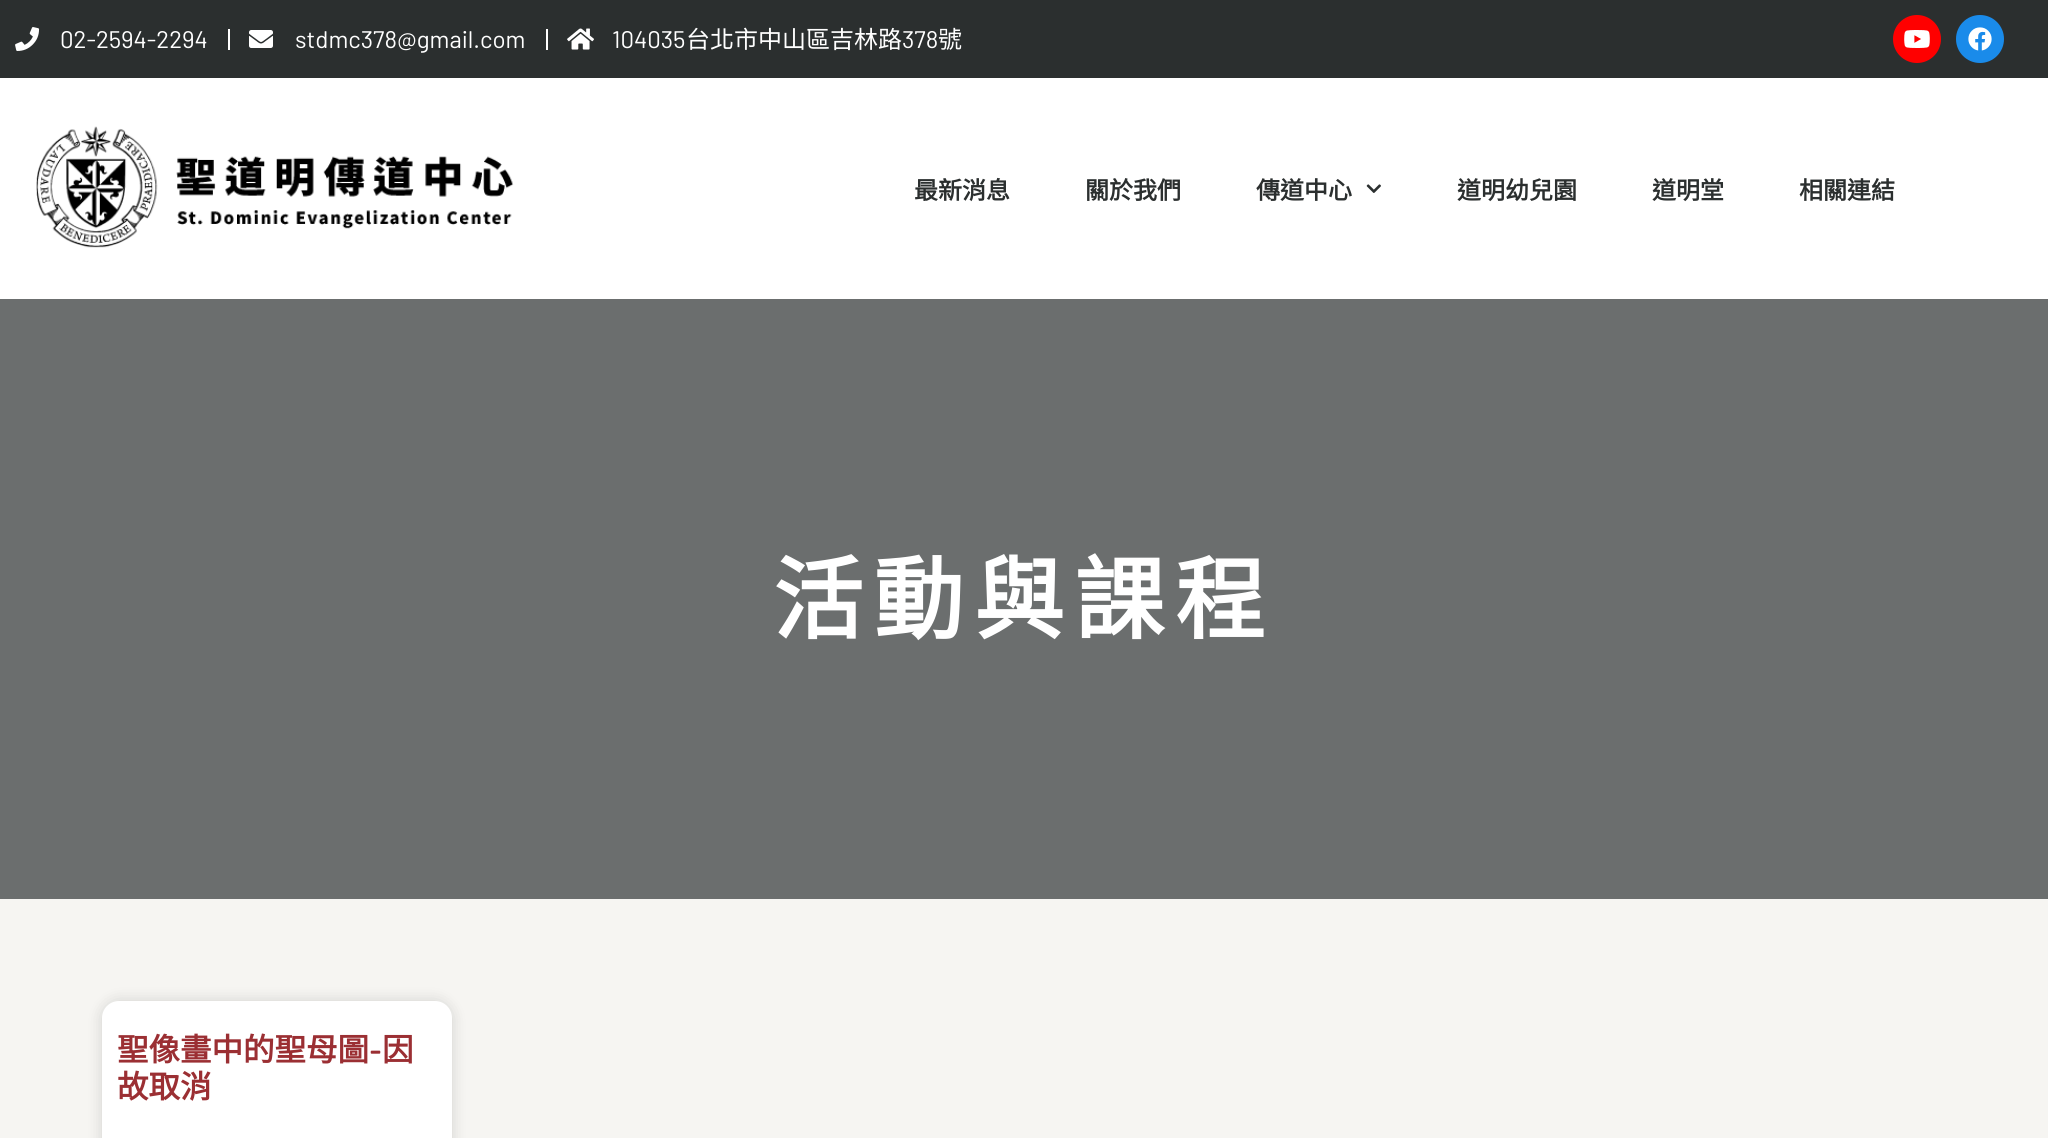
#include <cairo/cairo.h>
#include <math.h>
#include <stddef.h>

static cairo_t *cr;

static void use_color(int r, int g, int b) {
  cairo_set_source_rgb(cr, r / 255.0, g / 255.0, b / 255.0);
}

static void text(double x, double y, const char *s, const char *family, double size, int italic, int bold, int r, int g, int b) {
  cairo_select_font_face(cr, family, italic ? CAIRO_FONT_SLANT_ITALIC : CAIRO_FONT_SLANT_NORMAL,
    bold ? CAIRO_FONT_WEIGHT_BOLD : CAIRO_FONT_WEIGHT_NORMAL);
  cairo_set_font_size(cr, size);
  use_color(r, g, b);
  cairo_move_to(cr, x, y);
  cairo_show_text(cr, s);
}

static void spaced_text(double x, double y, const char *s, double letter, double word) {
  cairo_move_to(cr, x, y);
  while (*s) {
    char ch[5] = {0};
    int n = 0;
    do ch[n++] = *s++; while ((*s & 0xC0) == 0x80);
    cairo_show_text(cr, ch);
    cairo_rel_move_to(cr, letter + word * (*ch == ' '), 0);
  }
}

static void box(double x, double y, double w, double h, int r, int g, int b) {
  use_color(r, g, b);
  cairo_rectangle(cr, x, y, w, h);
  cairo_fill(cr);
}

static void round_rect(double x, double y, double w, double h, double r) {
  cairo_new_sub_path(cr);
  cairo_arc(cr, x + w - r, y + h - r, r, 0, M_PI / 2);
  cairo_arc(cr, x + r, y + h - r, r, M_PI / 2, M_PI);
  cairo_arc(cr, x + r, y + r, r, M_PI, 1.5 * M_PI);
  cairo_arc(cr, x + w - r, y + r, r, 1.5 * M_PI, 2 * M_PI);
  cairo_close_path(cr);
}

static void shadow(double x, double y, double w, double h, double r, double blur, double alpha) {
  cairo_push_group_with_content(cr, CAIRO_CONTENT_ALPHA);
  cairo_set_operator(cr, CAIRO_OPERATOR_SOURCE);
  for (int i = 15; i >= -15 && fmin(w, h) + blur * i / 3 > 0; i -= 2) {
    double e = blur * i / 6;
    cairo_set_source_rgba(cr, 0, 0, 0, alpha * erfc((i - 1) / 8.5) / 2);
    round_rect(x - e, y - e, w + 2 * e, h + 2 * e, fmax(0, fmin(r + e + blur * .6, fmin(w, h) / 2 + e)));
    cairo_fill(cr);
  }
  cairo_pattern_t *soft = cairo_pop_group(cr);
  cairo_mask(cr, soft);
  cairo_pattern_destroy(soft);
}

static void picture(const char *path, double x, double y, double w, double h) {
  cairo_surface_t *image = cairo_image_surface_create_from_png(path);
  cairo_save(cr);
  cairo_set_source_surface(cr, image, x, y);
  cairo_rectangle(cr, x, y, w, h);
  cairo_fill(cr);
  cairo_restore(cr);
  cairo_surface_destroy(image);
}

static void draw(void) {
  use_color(255, 255, 255);
  cairo_paint(cr);
  box(0, 0, 2048, 78, 43, 47, 47);
  picture("img_01.png", 15, 27, 25, 24);
  box(228, 29, 2, 21, 255, 255, 255);
  picture("img_02.png", 249, 30, 24, 18);
  box(546, 29, 2, 21, 255, 255, 255);
  picture("img_03.png", 567, 28, 27, 22);
  use_color(255, 0, 0);
  cairo_arc(cr, 1917, 39, 24, 0, 2 * M_PI);
  cairo_fill(cr);
  picture("img_04.png", 1904, 30, 26, 18);
  use_color(26, 139, 234);
  cairo_arc(cr, 1980, 39, 24, 0, 2 * M_PI);
  cairo_fill(cr);
  picture("img_05.png", 1968, 27, 24, 24);
  picture("img_06.png", 36, 126, 478, 122);
  picture("img_07.png", 1366, 184, 15, 9);
  box(0, 299, 2048, 600, 107, 110, 110);
  box(0, 899, 2048, 239, 246, 245, 242);
  use_color(0, 0, 0);
  shadow(102, 1001, 350, 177, 17, 7.5, 0.15);
  use_color(255, 255, 255);
  round_rect(102, 1001, 350, 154, 17);
  cairo_fill(cr);
  text(60, 48, "02-2594-2294", "Barlow", 24, 0, 0, 255, 255, 255);
  text(295, 48, "stdmc378@gmail.com", "Barlow", 24, 0, 0, 255, 255, 255);
  text(612, 48, "104035", "Barlow", 24, 0, 0, 255, 255, 255);
  text(686, 48, "台北市中山區吉林路", "Noto Sans CJK TC", 24, 0, 0, 255, 255, 255);
  text(902, 48, "378", "Barlow", 24, 0, 0, 255, 255, 255);
  text(938, 48, "號", "Noto Sans CJK TC", 24, 0, 0, 255, 255, 255);
  text(914, 199, "最新消息", "Noto Sans CJK TC", 24, 0, 1, 43, 47, 47);
  text(1085, 199, "關於我們", "Noto Sans CJK TC", 24, 0, 1, 43, 47, 47);
  text(1256, 199, "傳道中心", "Noto Sans CJK TC", 24, 0, 1, 43, 47, 47);
  text(1457, 199, "道明幼兒園", "Noto Sans CJK TC", 24, 0, 1, 43, 47, 47);
  text(1652, 199, "道明堂", "Noto Sans CJK TC", 24, 0, 1, 43, 47, 47);
  text(1799, 199, "相關連結", "Noto Sans CJK TC", 24, 0, 1, 43, 47, 47);
  cairo_set_font_size(cr, 90);
  use_color(255, 255, 255);
  spaced_text(773, 632, "活動與課程", 10.5, 0);
  text(117, 1061, "聖像畫中的聖母圖", "Noto Sans CJK TC", 31.5, 0, 1, 155, 47, 51);
  text(369, 1061, "-", "Averia Sans Libre", 31.5, 0, 1, 155, 47, 51);
  text(382, 1061, "因", "Noto Sans CJK TC", 31.5, 0, 1, 155, 47, 51);
  text(117, 1098, "故取消", "Noto Sans CJK TC", 31.5, 0, 1, 155, 47, 51);
}

int main(void) {
  cairo_surface_t *surface = cairo_image_surface_create(CAIRO_FORMAT_RGB24, 2048, 1138);
  cr = cairo_create(surface);
  cairo_font_options_t *options = cairo_font_options_create();
  cairo_font_options_set_hint_metrics(options, CAIRO_HINT_METRICS_OFF);
  cairo_font_options_set_hint_style(options, CAIRO_HINT_STYLE_NONE);
  cairo_set_font_options(cr, options);
  cairo_set_miter_limit(cr, 4);
  draw();
  cairo_surface_write_to_png(surface, "out.png");
  cairo_font_options_destroy(options);
  cairo_destroy(cr);
  cairo_surface_destroy(surface);
  return 0;
}
